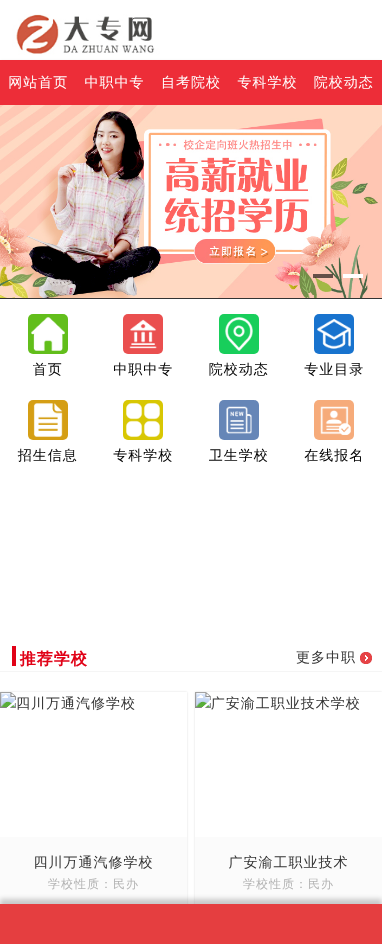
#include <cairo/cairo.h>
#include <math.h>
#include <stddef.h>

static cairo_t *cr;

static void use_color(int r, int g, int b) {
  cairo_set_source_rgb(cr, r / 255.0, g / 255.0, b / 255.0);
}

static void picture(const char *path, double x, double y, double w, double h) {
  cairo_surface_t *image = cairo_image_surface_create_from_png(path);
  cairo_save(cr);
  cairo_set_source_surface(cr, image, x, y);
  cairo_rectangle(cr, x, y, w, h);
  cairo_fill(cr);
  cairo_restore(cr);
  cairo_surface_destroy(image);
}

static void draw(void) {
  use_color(255, 255, 255);
  cairo_paint(cr);
  picture("img_01.png", 0, 14, 382, 930);
}

int main(void) {
  cairo_surface_t *surface = cairo_image_surface_create(CAIRO_FORMAT_RGB24, 382, 944);
  cr = cairo_create(surface);
  cairo_font_options_t *options = cairo_font_options_create();
  cairo_font_options_set_hint_metrics(options, CAIRO_HINT_METRICS_OFF);
  cairo_font_options_set_hint_style(options, CAIRO_HINT_STYLE_NONE);
  cairo_set_font_options(cr, options);
  cairo_set_miter_limit(cr, 4);
  draw();
  cairo_surface_write_to_png(surface, "out.png");
  cairo_font_options_destroy(options);
  cairo_destroy(cr);
  cairo_surface_destroy(surface);
  return 0;
}
